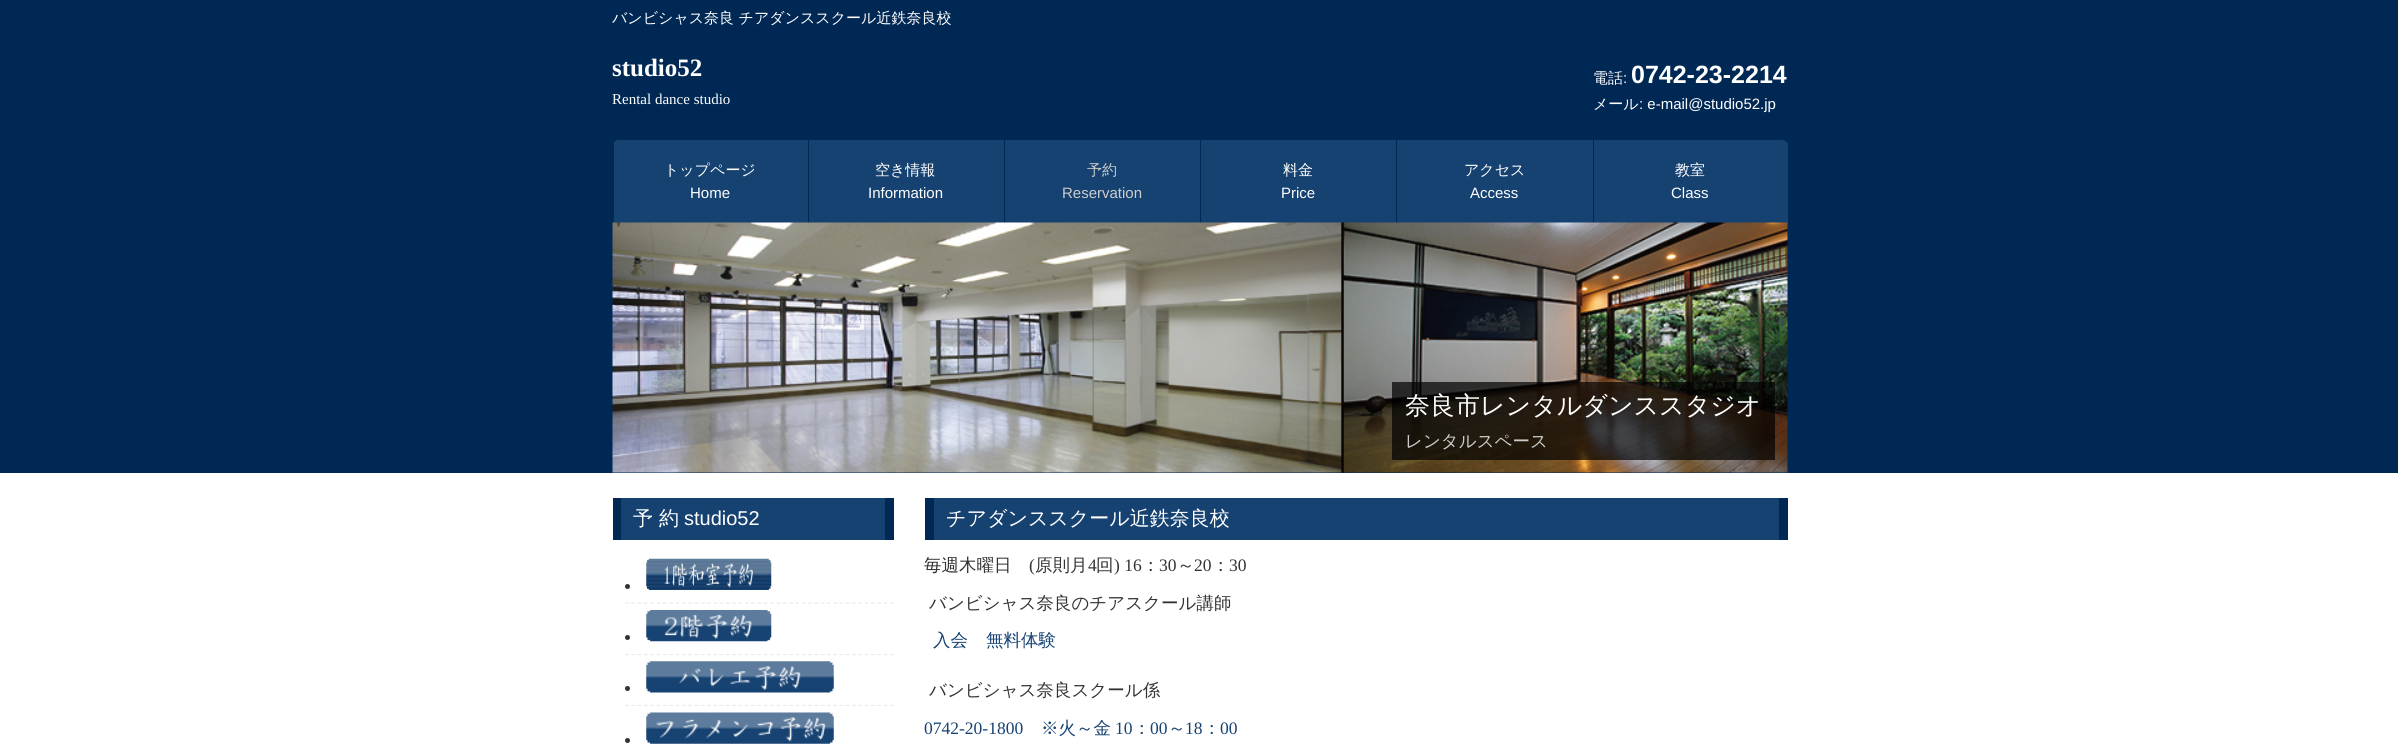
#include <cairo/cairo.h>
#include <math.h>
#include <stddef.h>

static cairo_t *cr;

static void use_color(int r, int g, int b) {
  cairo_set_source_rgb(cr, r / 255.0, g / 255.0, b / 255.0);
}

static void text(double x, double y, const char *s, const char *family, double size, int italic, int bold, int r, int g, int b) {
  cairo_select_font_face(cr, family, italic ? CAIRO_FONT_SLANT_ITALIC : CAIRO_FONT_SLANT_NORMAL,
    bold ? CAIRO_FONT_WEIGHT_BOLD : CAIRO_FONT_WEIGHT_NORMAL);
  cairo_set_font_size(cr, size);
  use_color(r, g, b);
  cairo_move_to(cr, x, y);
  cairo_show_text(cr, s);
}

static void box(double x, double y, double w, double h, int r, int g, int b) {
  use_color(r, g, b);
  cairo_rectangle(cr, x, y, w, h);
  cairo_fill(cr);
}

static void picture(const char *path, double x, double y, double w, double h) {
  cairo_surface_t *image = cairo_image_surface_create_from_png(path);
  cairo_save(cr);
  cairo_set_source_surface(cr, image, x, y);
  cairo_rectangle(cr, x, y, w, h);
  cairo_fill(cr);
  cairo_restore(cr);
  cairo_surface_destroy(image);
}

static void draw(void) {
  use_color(255, 255, 255);
  cairo_paint(cr);
  box(0, 0, 2398, 473, 0, 40, 85);
  use_color(22, 66, 114);
  cairo_new_path(cr);
  cairo_move_to(cr, 619, 140);
  cairo_line_to(cr, 1782, 140);
  cairo_curve_to(cr, 1785.5, 140, 1788, 142.5, 1788, 146);
  cairo_line_to(cr, 1788, 223);
  cairo_line_to(cr, 613, 223);
  cairo_line_to(cr, 613, 146);
  cairo_curve_to(cr, 613, 142.5, 615.5, 140, 619, 140);
  cairo_close_path(cr);
  cairo_fill(cr);
  cairo_save(cr);
  cairo_new_path(cr);
  cairo_move_to(cr, 619, 140);
  cairo_line_to(cr, 1782, 140);
  cairo_curve_to(cr, 1785.5, 140, 1788, 142.5, 1788, 146);
  cairo_line_to(cr, 1788, 223);
  cairo_line_to(cr, 613, 223);
  cairo_line_to(cr, 613, 146);
  cairo_curve_to(cr, 613, 142.5, 615.5, 140, 619, 140);
  cairo_close_path(cr);
  cairo_clip(cr);
  box(613, 140, 1, 83, 0, 40, 85);
  cairo_restore(cr);
  box(808, 140, 1, 83, 0, 40, 85);
  box(1004, 140, 1, 83, 0, 40, 85);
  box(1200, 140, 1, 83, 0, 40, 85);
  box(1396, 140, 1, 83, 0, 40, 85);
  box(1593, 140, 1, 83, 0, 40, 85);
  picture("img_01.png", 612, 222, 1176, 251);
  cairo_set_source_rgba(cr, 0, 0, 0, 0.7);
  cairo_rectangle(cr, 1392, 382, 383, 78);
  cairo_fill(cr);
  box(621, 498, 264, 42, 22, 66, 114);
  box(885, 498, 9, 42, 0, 40, 85);
  box(613, 498, 8, 42, 0, 40, 85);
  cairo_new_path(cr);
  cairo_move_to(cr, 625, 603);
  cairo_line_to(cr, 894, 603);
  use_color(235, 235, 235);
  cairo_set_line_width(cr, 1.2);
  cairo_set_dash(cr, (double[]){3.75, 2.56}, 2, 0);
  cairo_stroke(cr);
  use_color(51, 51, 51);
  cairo_arc(cr, 627.5, 586.5, 2.5, 0, 2 * M_PI);
  cairo_fill(cr);
  picture("img_02.png", 646, 558, 126, 32);
  cairo_new_path(cr);
  cairo_move_to(cr, 625, 654.5);
  cairo_line_to(cr, 894, 654.5);
  use_color(235, 235, 235);
  cairo_stroke(cr);
  use_color(51, 51, 51);
  cairo_arc(cr, 627.5, 637.5, 2.5, 0, 2 * M_PI);
  cairo_fill(cr);
  picture("img_03.png", 646, 610, 126, 32);
  cairo_new_path(cr);
  cairo_move_to(cr, 625, 705.5);
  cairo_line_to(cr, 894, 705.5);
  use_color(235, 235, 235);
  cairo_stroke(cr);
  use_color(51, 51, 51);
  cairo_arc(cr, 627.5, 688.5, 2.5, 0, 2 * M_PI);
  cairo_fill(cr);
  picture("img_04.png", 646, 661, 188, 32);
  cairo_arc(cr, 627.5, 740.5, 2.5, 0, 2 * M_PI);
  cairo_fill(cr);
  picture("img_05.png", 646, 712, 188, 32);
  box(934, 498, 845, 42, 22, 66, 114);
  box(1779, 498, 9, 42, 0, 40, 85);
  box(925, 498, 9, 42, 0, 40, 85);
  text(612, 23, "バンビシャス奈良 チアダンススクール近鉄奈良校", "WenQuanYi Zen Hei Medium", 15, 0, 0, 255, 255, 255);
  text(612, 76, "studio52", "Liberation Serif", 25, 0, 1, 255, 255, 255);
  text(612, 104, "Rental dance studio", "Liberation Serif", 15, 0, 0, 255, 255, 255);
  text(1593, 83, "電話", "WenQuanYi Zen Hei Medium", 15, 0, 0, 255, 255, 255);
  text(1623, 83, ":", "Liberation Sans", 15, 0, 0, 255, 255, 255);
  text(1631, 83, "0742-23-2214", "Liberation Sans", 25, 0, 1, 255, 255, 255);
  text(1593, 109, "メール", "WenQuanYi Zen Hei Medium", 15, 0, 0, 255, 255, 255);
  text(1639, 109, ": e-mail@studio52.jp", "Liberation Sans", 15, 0, 0, 255, 255, 255);
  text(664, 175, "トップページ", "WenQuanYi Zen Hei Medium", 15, 0, 0, 255, 255, 255);
  text(690, 198, "Home", "Liberation Sans", 15, 0, 0, 255, 255, 255);
  text(875, 175, "空き情報", "WenQuanYi Zen Hei Medium", 15, 0, 0, 255, 255, 255);
  text(868, 198, "Information", "Liberation Sans", 15, 0, 0, 255, 255, 255);
  text(1087, 175, "予約", "WenQuanYi Zen Hei Medium", 15, 0, 0, 204, 204, 204);
  text(1062, 198, "Reservation", "Liberation Sans", 15, 0, 0, 204, 204, 204);
  text(1283, 175, "料金", "WenQuanYi Zen Hei Medium", 15, 0, 0, 255, 255, 255);
  text(1281, 198, "Price", "Liberation Sans", 15, 0, 0, 255, 255, 255);
  text(1464, 175, "アクセス", "WenQuanYi Zen Hei Medium", 15, 0, 0, 255, 255, 255);
  text(1470, 198, "Access", "Liberation Sans", 15, 0, 0, 255, 255, 255);
  text(1675, 175, "教室", "WenQuanYi Zen Hei Medium", 15, 0, 0, 255, 255, 255);
  text(1671, 198, "Class", "Liberation Sans", 15, 0, 0, 255, 255, 255);
  text(1405, 414, "奈良市レンタルダンススタジオ", "WenQuanYi Zen Hei Medium", 25, 0, 0, 255, 255, 255);
  text(1405, 447, "レンタルスペース", "WenQuanYi Zen Hei Medium", 17.5, 0, 0, 204, 204, 204);
  text(633, 525, "予 約", "WenQuanYi Zen Hei Medium", 20, 0, 0, 255, 255, 255);
  text(684, 525, "studio52", "Liberation Sans", 20, 0, 0, 255, 255, 255);
  text(946, 525, "チアダンススクール近鉄奈良校", "WenQuanYi Zen Hei Medium", 20, 0, 0, 255, 255, 255);
  text(924, 571, "毎週木曜日", "WenQuanYi Zen Hei Medium", 17.5, 0, 0, 51, 51, 51);
  text(1029, 571, "(", "Liberation Serif", 17.5, 0, 0, 51, 51, 51);
  text(1035, 571, "原則月", "WenQuanYi Zen Hei Medium", 17.5, 0, 0, 51, 51, 51);
  text(1088, 571, "4", "Liberation Serif", 17.5, 0, 0, 51, 51, 51);
  text(1096, 571, "回", "WenQuanYi Zen Hei Medium", 17.5, 0, 0, 51, 51, 51);
  text(1114, 571, ") 16", "Liberation Serif", 17.5, 0, 0, 51, 51, 51);
  text(1142, 571, "：", "WenQuanYi Zen Hei Medium", 17.5, 0, 0, 51, 51, 51);
  text(1159, 571, "30", "Liberation Serif", 17.5, 0, 0, 51, 51, 51);
  text(1177, 571, "～", "WenQuanYi Zen Hei Medium", 17.5, 0, 0, 51, 51, 51);
  text(1194, 571, "20", "Liberation Serif", 17.5, 0, 0, 51, 51, 51);
  text(1212, 571, "：", "WenQuanYi Zen Hei Medium", 17.5, 0, 0, 51, 51, 51);
  text(1229, 571, "30", "Liberation Serif", 17.5, 0, 0, 51, 51, 51);
  text(929, 609, "バンビシャス奈良のチアスクール講師", "WenQuanYi Zen Hei Medium", 17.5, 0, 0, 51, 51, 51);
  text(933, 646, "入会", "WenQuanYi Zen Hei Medium", 17.5, 0, 0, 22, 66, 114);
  text(986, 646, "無料体験", "WenQuanYi Zen Hei Medium", 17.5, 0, 0, 22, 66, 114);
  text(929, 696, "バンビシャス奈良スクール係", "WenQuanYi Zen Hei Medium", 17.5, 0, 0, 51, 51, 51);
  text(924, 734, "0742-20-1800", "Liberation Serif", 17.5, 0, 0, 22, 66, 114);
  text(1041, 734, "※火～金", "WenQuanYi Zen Hei Medium", 17.5, 0, 0, 22, 66, 114);
  text(1115, 734, "10", "Liberation Serif", 17.5, 0, 0, 22, 66, 114);
  text(1133, 734, "：", "WenQuanYi Zen Hei Medium", 17.5, 0, 0, 22, 66, 114);
  text(1150, 734, "00", "Liberation Serif", 17.5, 0, 0, 22, 66, 114);
  text(1168, 734, "～", "WenQuanYi Zen Hei Medium", 17.5, 0, 0, 22, 66, 114);
  text(1185, 734, "18", "Liberation Serif", 17.5, 0, 0, 22, 66, 114);
  text(1203, 734, "：", "WenQuanYi Zen Hei Medium", 17.5, 0, 0, 22, 66, 114);
  text(1220, 734, "00", "Liberation Serif", 17.5, 0, 0, 22, 66, 114);
}

int main(void) {
  cairo_surface_t *surface = cairo_image_surface_create(CAIRO_FORMAT_RGB24, 2398, 752);
  cr = cairo_create(surface);
  cairo_font_options_t *options = cairo_font_options_create();
  cairo_font_options_set_hint_metrics(options, CAIRO_HINT_METRICS_OFF);
  cairo_font_options_set_hint_style(options, CAIRO_HINT_STYLE_NONE);
  cairo_set_font_options(cr, options);
  cairo_set_miter_limit(cr, 4);
  draw();
  cairo_surface_write_to_png(surface, "out.png");
  cairo_font_options_destroy(options);
  cairo_destroy(cr);
  cairo_surface_destroy(surface);
  return 0;
}
